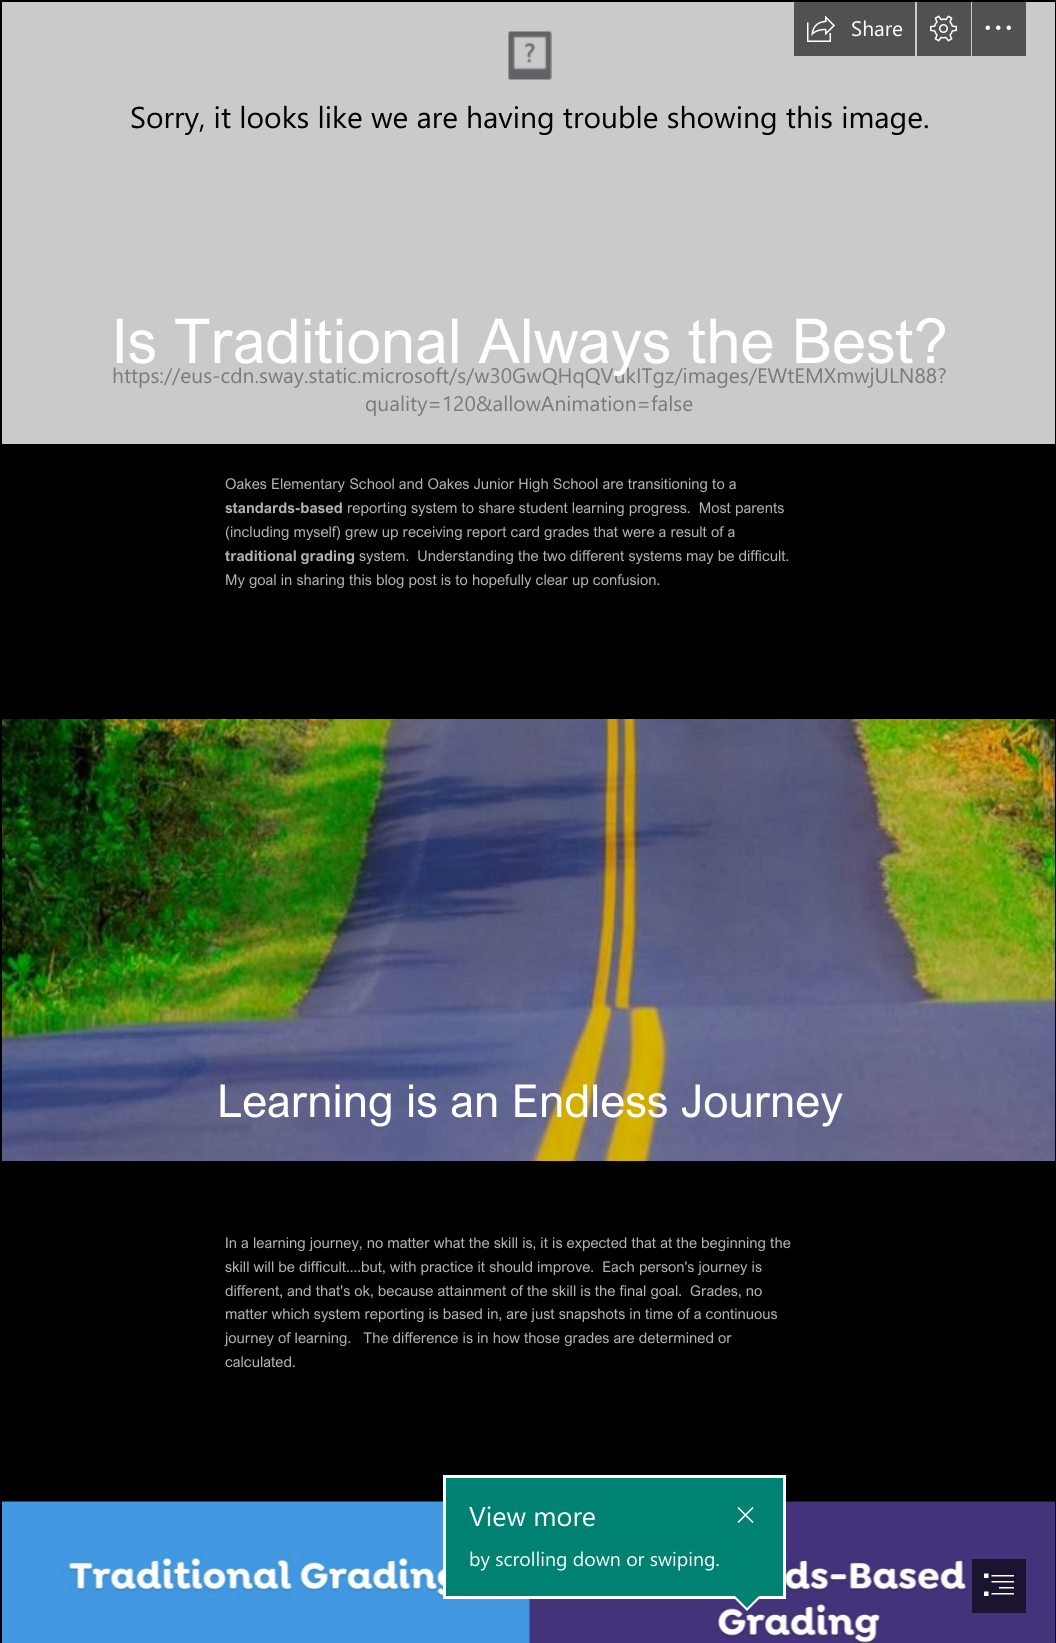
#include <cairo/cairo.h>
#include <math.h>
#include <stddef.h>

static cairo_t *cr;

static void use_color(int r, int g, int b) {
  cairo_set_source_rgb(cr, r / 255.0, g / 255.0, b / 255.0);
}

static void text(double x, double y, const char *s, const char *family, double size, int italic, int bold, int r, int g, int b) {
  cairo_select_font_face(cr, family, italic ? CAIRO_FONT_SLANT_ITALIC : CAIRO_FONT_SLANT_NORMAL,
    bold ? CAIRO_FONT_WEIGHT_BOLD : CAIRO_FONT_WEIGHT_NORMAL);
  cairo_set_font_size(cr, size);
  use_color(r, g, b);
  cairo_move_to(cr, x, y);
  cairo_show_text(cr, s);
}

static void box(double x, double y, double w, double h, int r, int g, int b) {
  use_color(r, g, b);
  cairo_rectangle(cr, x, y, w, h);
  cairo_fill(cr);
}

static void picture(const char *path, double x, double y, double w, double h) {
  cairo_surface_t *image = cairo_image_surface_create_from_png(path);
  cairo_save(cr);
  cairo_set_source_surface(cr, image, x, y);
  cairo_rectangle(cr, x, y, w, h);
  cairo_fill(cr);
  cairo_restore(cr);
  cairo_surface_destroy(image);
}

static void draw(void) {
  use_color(0, 0, 0);
  cairo_paint(cr);
  box(2, 2, 1053, 442, 202, 202, 202);
  box(794, 2, 121, 54, 81, 81, 81);
  picture("img_01.png", 807, 15, 28, 27);
  box(917, 2, 54, 54, 81, 81, 81);
  picture("img_02.png", 930, 15, 27, 27);
  box(972, 2, 54, 54, 81, 81, 81);
  picture("img_03.png", 985, 25, 26, 5);
  picture("img_04.png", 508, 31, 44, 49);
  picture("img_05.png", 2, 719, 1053, 442);
  picture("img_06.png", 2, 1501, 1053, 142);
  use_color(0, 130, 114);
  cairo_rectangle(cr, 444.5, 1476.5, 340, 121);
  cairo_fill_preserve(cr);
  use_color(255, 255, 255);
  cairo_set_line_width(cr, 3);
  cairo_stroke(cr);
  picture("img_07.png", 737, 1507, 17, 16);
  cairo_new_path(cr);
  cairo_move_to(cr, 732, 1596);
  cairo_line_to(cr, 762, 1596);
  cairo_line_to(cr, 747, 1611);
  cairo_close_path(cr);
  cairo_fill(cr);
  use_color(0, 130, 114);
  cairo_new_path(cr);
  cairo_move_to(cr, 735, 1596);
  cairo_line_to(cr, 759, 1596);
  cairo_line_to(cr, 747, 1608);
  cairo_close_path(cr);
  cairo_fill(cr);
  box(972, 1559, 54, 54, 27, 20, 49);
  picture("img_08.png", 984, 1573, 30, 23);
  text(851, 36, "Share", "Segoe UI", 21, 0, 0, 255, 255, 255);
  text(130, 128, "Sorry, it looks like we are having trouble showing this image.", "Segoe UI", 30, 0, 0, 0, 0, 0);
  text(112, 383, "https://eus-cdn.sway.static.microsoft/s/w30GwQHqQVukITgz/images/EWtEMXmwjULN88?", "Segoe UI", 21, 0, 0, 122, 122, 122);
  text(365, 411, "quality=120&allowAnimation=false", "Segoe UI", 21, 0, 0, 122, 122, 122);
  text(112, 363, "Is Traditional Always the Best?", "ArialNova", 61.9, 0, 0, 255, 255, 255);
  text(225, 489, "Oakes Elementary School and Oakes Junior High School are transitioning to a", "ArialNova", 14.85, 0, 0, 178, 178, 178);
  text(225, 513, "standards-based", "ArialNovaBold", 14.85, 0, 1, 178, 178, 178);
  text(347, 513, "reporting system to share student learning progress.  Most parents", "ArialNova", 14.85, 0, 0, 178, 178, 178);
  text(225, 537, "(including myself) grew up receiving report card grades that were a result of a", "ArialNova", 14.85, 0, 0, 178, 178, 178);
  text(225, 561, "traditional grading", "ArialNovaBold", 14.85, 0, 1, 178, 178, 178);
  text(359, 561, "system.  Understanding the two different systems may be difficult.", "ArialNova", 14.85, 0, 0, 178, 178, 178);
  text(225, 585, "My goal in sharing this blog post is to hopefully clear up confusion.", "ArialNova", 14.85, 0, 0, 178, 178, 178);
  text(217, 1117, "Learning is an Endless Journey", "ArialNova", 45.4, 0, 0, 255, 255, 255);
  text(225, 1248, "In a learning journey, no matter what the skill is, it is expected that at the beginning the", "ArialNova", 14.85, 0, 0, 178, 178, 178);
  text(225, 1272, "skill will be difficult....but, with practice it should improve.  Each person's journey is", "ArialNova", 14.85, 0, 0, 178, 178, 178);
  text(225, 1296, "different, and that's ok, because attainment of the skill is the final goal.  Grades, no", "ArialNova", 14.85, 0, 0, 178, 178, 178);
  text(225, 1319, "matter which system reporting is based in, are just snapshots in time of a continuous", "ArialNova", 14.85, 0, 0, 178, 178, 178);
  text(225, 1343, "journey of learning.   The difference is in how those grades are determined or", "ArialNova", 14.85, 0, 0, 178, 178, 178);
  text(225, 1367, "calculated.", "ArialNova", 14.85, 0, 0, 178, 178, 178);
  text(469, 1526, "View more", "Segoe UI", 27, 0, 0, 255, 255, 255);
  text(469, 1566, "by scrolling down or swiping.", "Segoe UI", 19.5, 0, 0, 255, 255, 255);
}

int main(void) {
  cairo_surface_t *surface = cairo_image_surface_create(CAIRO_FORMAT_RGB24, 1056, 1643);
  cr = cairo_create(surface);
  cairo_font_options_t *options = cairo_font_options_create();
  cairo_font_options_set_hint_metrics(options, CAIRO_HINT_METRICS_OFF);
  cairo_font_options_set_hint_style(options, CAIRO_HINT_STYLE_NONE);
  cairo_set_font_options(cr, options);
  cairo_set_miter_limit(cr, 4);
  draw();
  cairo_surface_write_to_png(surface, "out.png");
  cairo_font_options_destroy(options);
  cairo_destroy(cr);
  cairo_surface_destroy(surface);
  return 0;
}
